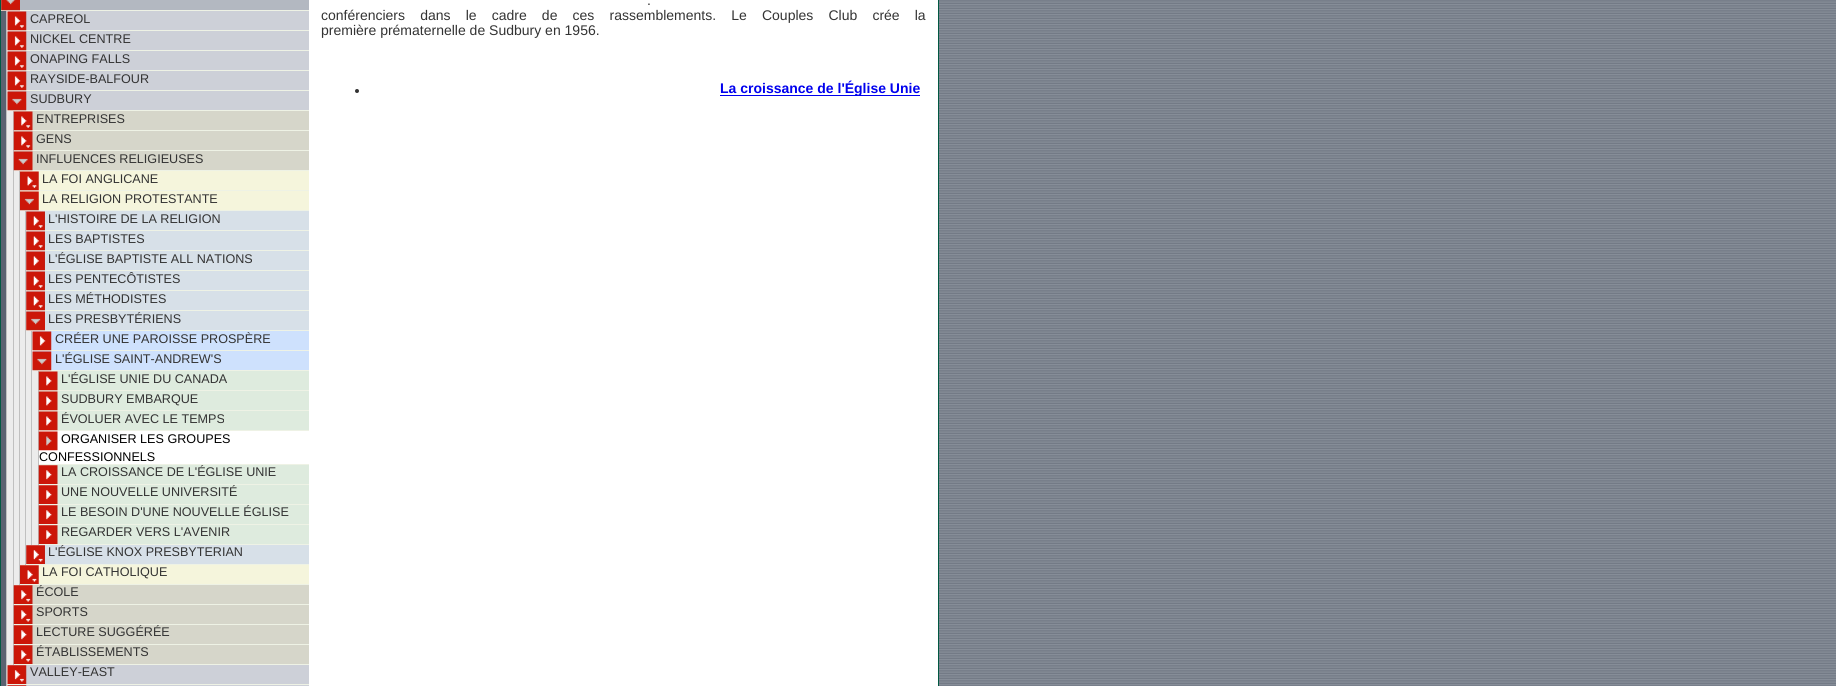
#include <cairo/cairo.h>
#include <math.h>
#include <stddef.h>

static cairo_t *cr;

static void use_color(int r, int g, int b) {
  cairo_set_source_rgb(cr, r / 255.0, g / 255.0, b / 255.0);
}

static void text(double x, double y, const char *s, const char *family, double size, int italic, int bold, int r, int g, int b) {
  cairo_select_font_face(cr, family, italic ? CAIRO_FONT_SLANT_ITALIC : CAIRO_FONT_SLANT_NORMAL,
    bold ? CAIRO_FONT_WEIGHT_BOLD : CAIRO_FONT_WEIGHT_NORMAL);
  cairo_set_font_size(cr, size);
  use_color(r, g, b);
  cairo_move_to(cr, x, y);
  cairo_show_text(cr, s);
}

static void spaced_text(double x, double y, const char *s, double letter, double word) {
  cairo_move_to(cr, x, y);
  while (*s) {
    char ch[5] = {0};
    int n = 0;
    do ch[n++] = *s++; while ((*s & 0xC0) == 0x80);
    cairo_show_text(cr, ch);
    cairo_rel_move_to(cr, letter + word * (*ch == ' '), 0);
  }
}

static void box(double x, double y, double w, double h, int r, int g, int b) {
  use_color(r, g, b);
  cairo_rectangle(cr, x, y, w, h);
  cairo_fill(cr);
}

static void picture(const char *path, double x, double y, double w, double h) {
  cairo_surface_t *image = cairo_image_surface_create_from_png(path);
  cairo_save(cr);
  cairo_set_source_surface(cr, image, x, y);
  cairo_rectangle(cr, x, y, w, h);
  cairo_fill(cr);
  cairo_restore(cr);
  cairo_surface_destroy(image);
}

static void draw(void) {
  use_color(255, 255, 255);
  cairo_paint(cr);
  picture("img_01.png", 939, 0, 897, 686);
  cairo_rectangle(cr, 0.5, -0.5, 938, 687);
  use_color(0, 88, 65);
  cairo_set_line_width(cr, 1);
  cairo_stroke(cr);
  box(1, 11, 5, 675, 91, 98, 113);
  box(1, 0, 308, 10, 179, 184, 193);
  box(1, 10, 308, 1, 238, 242, 229);
  picture("img_02.png", 1, 0, 19, 11);
  box(7, 11, 31, 675, 236, 236, 236);
  box(6, 11, 1, 675, 192, 192, 192);
  box(8, 11, 301, 19, 205, 208, 216);
  box(8, 30, 301, 1, 238, 242, 229);
  picture("img_03.png", 7, 11, 20, 20);
  box(8, 31, 301, 19, 205, 208, 216);
  box(8, 50, 301, 1, 238, 242, 229);
  picture("img_04.png", 7, 31, 20, 20);
  box(8, 51, 301, 19, 205, 208, 216);
  box(8, 70, 301, 1, 238, 242, 229);
  picture("img_04.png", 7, 51, 20, 20);
  box(8, 71, 301, 19, 205, 208, 216);
  box(8, 90, 301, 1, 238, 242, 229);
  picture("img_04.png", 7, 71, 20, 20);
  box(8, 91, 301, 19, 205, 208, 216);
  box(8, 110, 301, 1, 238, 242, 229);
  picture("img_05.png", 7, 91, 20, 20);
  box(13, 111, 1, 554, 192, 192, 192);
  box(14, 111, 295, 19, 214, 214, 202);
  box(14, 130, 295, 1, 238, 242, 229);
  picture("img_06.png", 13, 111, 20, 20);
  box(14, 131, 295, 19, 214, 214, 202);
  box(14, 150, 295, 1, 238, 242, 229);
  picture("img_06.png", 13, 131, 20, 20);
  box(14, 151, 295, 19, 214, 214, 202);
  box(14, 170, 295, 1, 238, 242, 229);
  picture("img_07.png", 13, 151, 20, 20);
  box(19, 171, 1, 414, 192, 192, 192);
  box(20, 171, 289, 19, 245, 245, 220);
  box(20, 190, 289, 1, 238, 242, 229);
  picture("img_08.png", 20, 171, 19, 20);
  box(20, 191, 289, 19, 245, 245, 220);
  box(20, 210, 289, 1, 238, 242, 229);
  picture("img_09.png", 20, 191, 19, 20);
  box(25, 211, 1, 354, 192, 192, 192);
  box(26, 211, 283, 19, 215, 224, 232);
  box(26, 230, 283, 1, 238, 242, 229);
  picture("img_10.png", 26, 211, 19, 20);
  box(26, 231, 283, 19, 215, 224, 232);
  box(26, 250, 283, 1, 238, 242, 229);
  picture("img_11.png", 26, 231, 19, 20);
  box(26, 251, 283, 19, 215, 224, 232);
  box(26, 270, 283, 1, 238, 242, 229);
  picture("img_12.png", 26, 251, 19, 20);
  box(26, 271, 283, 19, 215, 224, 232);
  box(26, 290, 283, 1, 238, 242, 229);
  picture("img_10.png", 26, 271, 19, 20);
  box(26, 291, 283, 19, 215, 224, 232);
  box(26, 310, 283, 1, 238, 242, 229);
  picture("img_10.png", 26, 291, 19, 20);
  box(26, 311, 283, 19, 215, 224, 232);
  box(26, 330, 283, 1, 238, 242, 229);
  picture("img_13.png", 26, 311, 19, 20);
  box(31, 331, 1, 214, 192, 192, 192);
  box(33, 331, 276, 19, 206, 225, 253);
  box(33, 350, 276, 1, 238, 242, 229);
  picture("img_14.png", 32, 331, 20, 20);
  box(33, 351, 276, 19, 206, 225, 253);
  box(33, 370, 276, 1, 238, 242, 229);
  picture("img_15.png", 32, 351, 20, 20);
  box(38, 371, 1, 174, 192, 192, 192);
  box(39, 371, 270, 19, 222, 235, 222);
  box(39, 390, 270, 1, 238, 242, 229);
  picture("img_16.png", 38, 371, 20, 20);
  box(39, 391, 270, 19, 222, 235, 222);
  box(39, 410, 270, 1, 238, 242, 229);
  picture("img_16.png", 38, 391, 20, 20);
  box(39, 411, 270, 19, 222, 235, 222);
  box(39, 430, 270, 1, 238, 242, 229);
  picture("img_16.png", 38, 411, 20, 20);
  box(39, 464, 270, 1, 238, 242, 229);
  picture("img_17.png", 38, 431, 20, 20);
  box(39, 465, 270, 19, 222, 235, 222);
  box(39, 484, 270, 1, 238, 242, 229);
  picture("img_18.png", 38, 465, 20, 19);
  box(39, 485, 270, 19, 222, 235, 222);
  box(39, 504, 270, 1, 238, 242, 229);
  picture("img_18.png", 38, 485, 20, 19);
  box(39, 505, 270, 19, 222, 235, 222);
  box(39, 524, 270, 1, 238, 242, 229);
  picture("img_18.png", 38, 505, 20, 19);
  box(39, 525, 270, 19, 222, 235, 222);
  box(39, 544, 270, 1, 238, 242, 229);
  picture("img_18.png", 38, 525, 20, 19);
  box(26, 545, 283, 19, 215, 224, 232);
  box(26, 564, 283, 1, 238, 242, 229);
  picture("img_19.png", 26, 545, 19, 19);
  box(20, 565, 289, 19, 245, 245, 220);
  box(20, 584, 289, 1, 238, 242, 229);
  picture("img_20.png", 20, 565, 19, 19);
  box(14, 585, 295, 19, 214, 214, 202);
  box(14, 604, 295, 1, 238, 242, 229);
  picture("img_21.png", 13, 585, 20, 19);
  box(14, 605, 295, 19, 214, 214, 202);
  box(14, 624, 295, 1, 238, 242, 229);
  picture("img_21.png", 13, 605, 20, 19);
  box(14, 625, 295, 19, 214, 214, 202);
  box(14, 644, 295, 1, 238, 242, 229);
  picture("img_22.png", 13, 625, 20, 19);
  box(14, 645, 295, 19, 214, 214, 202);
  box(14, 664, 295, 1, 238, 242, 229);
  picture("img_21.png", 13, 645, 20, 19);
  box(8, 665, 301, 19, 205, 208, 216);
  box(8, 684, 301, 1, 238, 242, 229);
  picture("img_23.png", 7, 665, 20, 19);
  box(8, 685, 301, 1, 205, 208, 216);
  picture("img_24.png", 7, 685, 20, 1);
  use_color(51, 51, 51);
  cairo_arc(cr, 357, 91, 2, 0, 2 * M_PI);
  cairo_fill(cr);
  box(720, 95, 200, 1, 0, 0, 238);
  text(30, 23, "CAPREOL", "Liberation Sans", 12.6, 0, 0, 51, 51, 51);
  text(30, 43, "NICKEL CENTRE", "Liberation Sans", 12.6, 0, 0, 51, 51, 51);
  text(30, 63, "ONAPING FALLS", "Liberation Sans", 12.6, 0, 0, 51, 51, 51);
  text(30, 83, "RAYSIDE-BALFOUR", "Liberation Sans", 12.6, 0, 0, 51, 51, 51);
  text(30, 103, "SUDBURY", "Liberation Sans", 12.6, 0, 0, 51, 51, 51);
  text(36, 123, "ENTREPRISES", "Liberation Sans", 12.6, 0, 0, 51, 51, 51);
  text(36, 143, "GENS", "Liberation Sans", 12.6, 0, 0, 51, 51, 51);
  text(36, 163, "INFLUENCES RELIGIEUSES", "Liberation Sans", 12.6, 0, 0, 51, 51, 51);
  text(42, 183, "LA FOI ANGLICANE", "Liberation Sans", 12.6, 0, 0, 51, 51, 51);
  text(42, 203, "LA RELIGION PROTESTANTE", "Liberation Sans", 12.6, 0, 0, 51, 51, 51);
  text(48, 223, "L'HISTOIRE DE LA RELIGION", "Liberation Sans", 12.6, 0, 0, 51, 51, 51);
  text(48, 243, "LES BAPTISTES", "Liberation Sans", 12.6, 0, 0, 51, 51, 51);
  text(48, 263, "L'ÉGLISE BAPTISTE ALL NATIONS", "Liberation Sans", 12.6, 0, 0, 51, 51, 51);
  text(48, 283, "LES PENTECÔTISTES", "Liberation Sans", 12.6, 0, 0, 51, 51, 51);
  text(48, 303, "LES MÉTHODISTES", "Liberation Sans", 12.6, 0, 0, 51, 51, 51);
  text(48, 323, "LES PRESBYTÉRIENS", "Liberation Sans", 12.6, 0, 0, 51, 51, 51);
  text(55, 343, "CRÉER UNE PAROISSE PROSPÈRE", "Liberation Sans", 12.6, 0, 0, 51, 51, 51);
  text(55, 363, "L'ÉGLISE SAINT-ANDREW'S", "Liberation Sans", 12.6, 0, 0, 51, 51, 51);
  text(61, 383, "L'ÉGLISE UNIE DU CANADA", "Liberation Sans", 12.6, 0, 0, 51, 51, 51);
  text(61, 403, "SUDBURY EMBARQUE", "Liberation Sans", 12.6, 0, 0, 51, 51, 51);
  text(61, 423, "ÉVOLUER AVEC LE TEMPS", "Liberation Sans", 12.6, 0, 0, 51, 51, 51);
  text(61, 443, "ORGANISER LES GROUPES", "Liberation Sans", 12.6, 0, 0, 0, 0, 0);
  text(39, 461, "CONFESSIONNELS", "Liberation Sans", 12.6, 0, 0, 0, 0, 0);
  text(61, 476, "LA CROISSANCE DE L'ÉGLISE UNIE", "Liberation Sans", 12.6, 0, 0, 51, 51, 51);
  text(61, 496, "UNE NOUVELLE UNIVERSITÉ", "Liberation Sans", 12.6, 0, 0, 51, 51, 51);
  text(61, 516, "LE BESOIN D'UNE NOUVELLE ÉGLISE", "Liberation Sans", 12.6, 0, 0, 51, 51, 51);
  text(61, 536, "REGARDER VERS L'AVENIR", "Liberation Sans", 12.6, 0, 0, 51, 51, 51);
  text(48, 556, "L'ÉGLISE KNOX PRESBYTERIAN", "Liberation Sans", 12.6, 0, 0, 51, 51, 51);
  text(42, 576, "LA FOI CATHOLIQUE", "Liberation Sans", 12.6, 0, 0, 51, 51, 51);
  text(36, 596, "ÉCOLE", "Liberation Sans", 12.6, 0, 0, 51, 51, 51);
  text(36, 616, "SPORTS", "Liberation Sans", 12.6, 0, 0, 51, 51, 51);
  text(36, 636, "LECTURE SUGGÉRÉE", "Liberation Sans", 12.6, 0, 0, 51, 51, 51);
  text(36, 656, "ÉTABLISSEMENTS", "Liberation Sans", 12.6, 0, 0, 51, 51, 51);
  text(30, 676, "VALLEY-EAST", "Liberation Sans", 12.6, 0, 0, 51, 51, 51);
  cairo_set_font_size(cr, 14);
  spaced_text(647, 5, ".", 0, 1);
  spaced_text(321, 20, "conférenciers dans le cadre de ces rassemblements. Le Couples Club crée la", 0, 11.25);
  text(321, 35, "première prématernelle de Sudbury en 1956.", "Liberation Sans", 14, 0, 0, 51, 51, 51);
  text(720, 93, "La croissance de l'Église Unie", "Liberation Sans", 14, 0, 1, 0, 0, 238);
}

int main(void) {
  cairo_surface_t *surface = cairo_image_surface_create(CAIRO_FORMAT_RGB24, 1836, 686);
  cr = cairo_create(surface);
  cairo_font_options_t *options = cairo_font_options_create();
  cairo_font_options_set_hint_metrics(options, CAIRO_HINT_METRICS_OFF);
  cairo_font_options_set_hint_style(options, CAIRO_HINT_STYLE_NONE);
  cairo_set_font_options(cr, options);
  cairo_set_miter_limit(cr, 4);
  draw();
  cairo_surface_write_to_png(surface, "out.png");
  cairo_font_options_destroy(options);
  cairo_destroy(cr);
  cairo_surface_destroy(surface);
  return 0;
}
